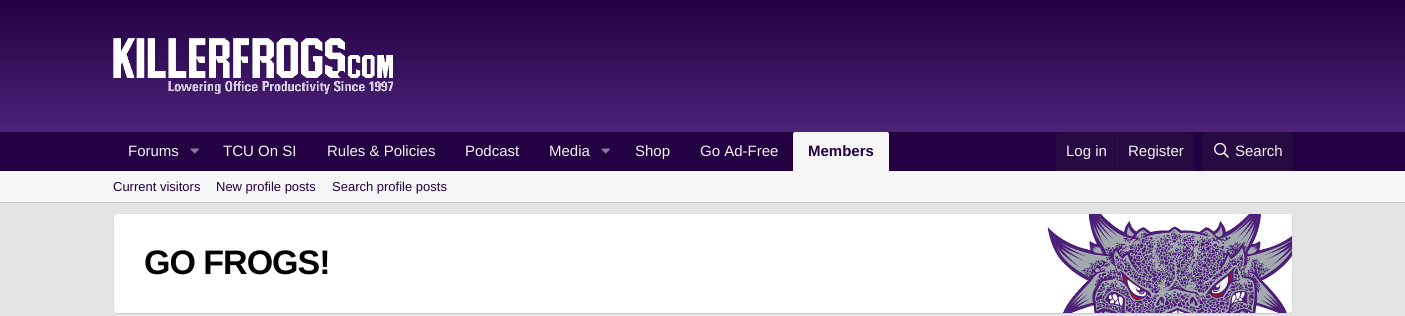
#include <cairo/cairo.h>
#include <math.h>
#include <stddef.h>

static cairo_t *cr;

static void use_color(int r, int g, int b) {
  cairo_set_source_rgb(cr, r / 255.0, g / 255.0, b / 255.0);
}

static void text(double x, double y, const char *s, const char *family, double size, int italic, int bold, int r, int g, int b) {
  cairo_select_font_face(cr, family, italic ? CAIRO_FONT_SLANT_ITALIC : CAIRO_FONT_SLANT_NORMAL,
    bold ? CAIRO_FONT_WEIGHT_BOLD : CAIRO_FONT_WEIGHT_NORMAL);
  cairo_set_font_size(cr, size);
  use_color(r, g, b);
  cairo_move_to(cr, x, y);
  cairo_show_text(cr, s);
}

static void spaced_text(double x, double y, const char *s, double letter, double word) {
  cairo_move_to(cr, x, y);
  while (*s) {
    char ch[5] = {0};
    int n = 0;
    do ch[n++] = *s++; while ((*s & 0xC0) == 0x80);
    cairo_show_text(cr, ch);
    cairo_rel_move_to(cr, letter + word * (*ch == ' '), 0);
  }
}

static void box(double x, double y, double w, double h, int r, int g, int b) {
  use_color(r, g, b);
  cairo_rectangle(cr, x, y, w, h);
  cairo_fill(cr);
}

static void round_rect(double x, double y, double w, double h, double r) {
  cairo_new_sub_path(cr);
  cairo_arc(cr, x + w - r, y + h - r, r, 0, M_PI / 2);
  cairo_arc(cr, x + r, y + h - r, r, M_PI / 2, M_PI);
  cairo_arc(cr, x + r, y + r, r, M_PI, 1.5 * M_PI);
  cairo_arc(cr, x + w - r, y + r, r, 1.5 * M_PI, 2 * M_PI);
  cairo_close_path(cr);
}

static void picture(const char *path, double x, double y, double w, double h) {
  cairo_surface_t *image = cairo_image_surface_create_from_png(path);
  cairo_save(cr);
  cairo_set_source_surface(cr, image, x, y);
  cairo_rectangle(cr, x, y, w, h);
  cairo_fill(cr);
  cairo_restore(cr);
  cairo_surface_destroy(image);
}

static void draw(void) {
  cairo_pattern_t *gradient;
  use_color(228, 228, 228);
  cairo_paint(cr);
  gradient = cairo_pattern_create_linear(703, 132, 703, 0);
  cairo_pattern_add_color_stop_rgba(gradient, 0, 0.294, 0.137, 0.471, 1);
  cairo_pattern_add_color_stop_rgba(gradient, 1, 0.137, 0, 0.259, 1);
  cairo_set_source(cr, gradient);
  cairo_pattern_destroy(gradient);
  cairo_rectangle(cr, 0, 0, 1405, 132);
  cairo_fill(cr);
  picture("img_01.png", 113, 38, 280, 56);
  box(0, 132, 1405, 39, 35, 0, 66);
  picture("img_02.png", 190, 148, 9, 6);
  picture("img_02.png", 601, 148, 9, 6);
  use_color(246, 246, 246);
  cairo_new_path(cr);
  cairo_move_to(cr, 795, 132);
  cairo_line_to(cr, 887, 132);
  cairo_curve_to(cr, 888, 132, 889, 133, 889, 134);
  cairo_line_to(cr, 889, 171);
  cairo_line_to(cr, 793, 171);
  cairo_line_to(cr, 793, 134);
  cairo_curve_to(cr, 793, 133, 794, 132, 795, 132);
  cairo_close_path(cr);
  cairo_fill(cr);
  use_color(40, 10, 66);
  cairo_new_path(cr);
  cairo_move_to(cr, 1060, 132);
  cairo_line_to(cr, 1190, 132);
  cairo_curve_to(cr, 1192, 132, 1194, 134, 1194, 136);
  cairo_line_to(cr, 1194, 171);
  cairo_line_to(cr, 1056, 171);
  cairo_line_to(cr, 1056, 136);
  cairo_curve_to(cr, 1056, 134, 1058, 132, 1060, 132);
  cairo_close_path(cr);
  cairo_fill(cr);
  box(1117, 132, 1, 39, 44, 18, 66);
  use_color(40, 10, 66);
  cairo_new_path(cr);
  cairo_move_to(cr, 1206, 132);
  cairo_line_to(cr, 1289, 132);
  cairo_curve_to(cr, 1291, 132, 1293, 134, 1293, 136);
  cairo_line_to(cr, 1293, 171);
  cairo_line_to(cr, 1202, 171);
  cairo_line_to(cr, 1202, 136);
  cairo_curve_to(cr, 1202, 134, 1204, 132, 1206, 132);
  cairo_close_path(cr);
  cairo_fill(cr);
  picture("img_03.png", 1214, 142, 15, 16);
  box(0, 171, 1405, 31, 246, 246, 246);
  box(0, 202, 1405, 1, 204, 204, 204);
  use_color(255, 255, 255);
  round_rect(113, 213, 1180, 101, 4);
  cairo_fill(cr);
  cairo_new_path(cr);
  cairo_move_to(cr, 114.5, 214.5);
  cairo_line_to(cr, 117, 213.5);
  cairo_line_to(cr, 1289, 213.5);
  cairo_line_to(cr, 1291.5, 214.5);
  use_color(224, 224, 224);
  cairo_set_line_width(cr, 1);
  cairo_stroke(cr);
  cairo_new_path(cr);
  cairo_move_to(cr, 1291.5, 214.5);
  cairo_line_to(cr, 1292.5, 217);
  cairo_line_to(cr, 1292.5, 310.5);
  cairo_line_to(cr, 1291.5, 312.5);
  use_color(217, 217, 217);
  cairo_stroke(cr);
  cairo_new_path(cr);
  cairo_move_to(cr, 1291.5, 312.5);
  cairo_line_to(cr, 1289, 313.5);
  cairo_line_to(cr, 117, 313.5);
  cairo_line_to(cr, 114.5, 312.5);
  use_color(204, 204, 204);
  cairo_stroke(cr);
  cairo_new_path(cr);
  cairo_move_to(cr, 114.5, 312.5);
  cairo_line_to(cr, 113.5, 310);
  cairo_line_to(cr, 113.5, 216.5);
  cairo_line_to(cr, 114.5, 214.5);
  use_color(217, 217, 217);
  cairo_stroke(cr);
  picture("img_04.png", 1047, 214, 245, 99);
  text(128, 156, "Forums", "Liberation Sans", 15, 0, 0, 242, 242, 242);
  text(223, 156, "TCU On SI", "Liberation Sans", 15, 0, 0, 242, 242, 242);
  text(327, 156, "Rules & Policies", "Liberation Sans", 15, 0, 0, 242, 242, 242);
  text(465, 156, "Podcast", "Liberation Sans", 15, 0, 0, 242, 242, 242);
  text(549, 156, "Media", "Liberation Sans", 15, 0, 0, 242, 242, 242);
  text(635, 156, "Shop", "Liberation Sans", 15, 0, 0, 242, 242, 242);
  text(700, 156, "Go Ad-Free", "Liberation Sans", 15, 0, 0, 242, 242, 242);
  text(808, 156, "Members", "Liberation Sans", 15, 0, 1, 35, 0, 66);
  text(1066, 156, "Log in", "Liberation Sans", 15, 0, 0, 242, 242, 242);
  text(1128, 156, "Register", "Liberation Sans", 15, 0, 0, 242, 242, 242);
  text(1235, 156, "Search", "Liberation Sans", 15, 0, 0, 242, 242, 242);
  text(113, 191, "Current visitors", "Liberation Sans", 13, 0, 0, 35, 0, 66);
  text(216, 191, "New profile posts", "Liberation Sans", 13, 0, 0, 35, 0, 66);
  text(332, 191, "Search profile posts", "Liberation Sans", 13, 0, 0, 35, 0, 66);
  cairo_select_font_face(cr, "Liberation Sans", CAIRO_FONT_SLANT_NORMAL, CAIRO_FONT_WEIGHT_BOLD);
  cairo_set_font_size(cr, 34);
  use_color(0, 0, 0);
  spaced_text(144, 274, "GO FROGS!", -1, 0);
}

int main(void) {
  cairo_surface_t *surface = cairo_image_surface_create(CAIRO_FORMAT_RGB24, 1405, 316);
  cr = cairo_create(surface);
  cairo_font_options_t *options = cairo_font_options_create();
  cairo_font_options_set_hint_metrics(options, CAIRO_HINT_METRICS_OFF);
  cairo_font_options_set_hint_style(options, CAIRO_HINT_STYLE_NONE);
  cairo_set_font_options(cr, options);
  cairo_set_miter_limit(cr, 4);
  draw();
  cairo_surface_write_to_png(surface, "out.png");
  cairo_font_options_destroy(options);
  cairo_destroy(cr);
  cairo_surface_destroy(surface);
  return 0;
}
